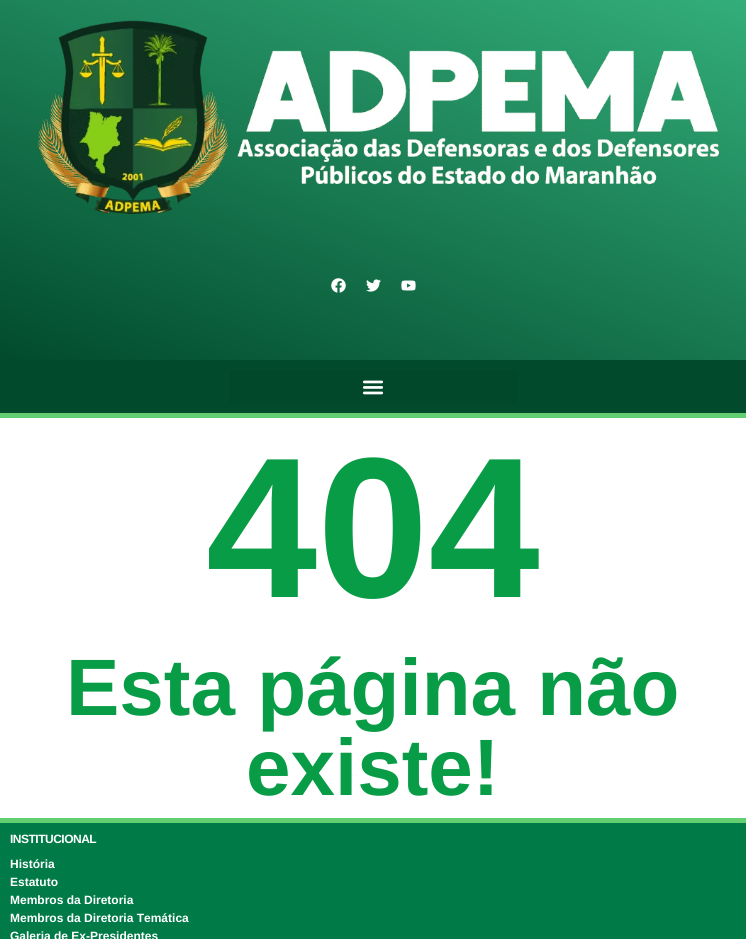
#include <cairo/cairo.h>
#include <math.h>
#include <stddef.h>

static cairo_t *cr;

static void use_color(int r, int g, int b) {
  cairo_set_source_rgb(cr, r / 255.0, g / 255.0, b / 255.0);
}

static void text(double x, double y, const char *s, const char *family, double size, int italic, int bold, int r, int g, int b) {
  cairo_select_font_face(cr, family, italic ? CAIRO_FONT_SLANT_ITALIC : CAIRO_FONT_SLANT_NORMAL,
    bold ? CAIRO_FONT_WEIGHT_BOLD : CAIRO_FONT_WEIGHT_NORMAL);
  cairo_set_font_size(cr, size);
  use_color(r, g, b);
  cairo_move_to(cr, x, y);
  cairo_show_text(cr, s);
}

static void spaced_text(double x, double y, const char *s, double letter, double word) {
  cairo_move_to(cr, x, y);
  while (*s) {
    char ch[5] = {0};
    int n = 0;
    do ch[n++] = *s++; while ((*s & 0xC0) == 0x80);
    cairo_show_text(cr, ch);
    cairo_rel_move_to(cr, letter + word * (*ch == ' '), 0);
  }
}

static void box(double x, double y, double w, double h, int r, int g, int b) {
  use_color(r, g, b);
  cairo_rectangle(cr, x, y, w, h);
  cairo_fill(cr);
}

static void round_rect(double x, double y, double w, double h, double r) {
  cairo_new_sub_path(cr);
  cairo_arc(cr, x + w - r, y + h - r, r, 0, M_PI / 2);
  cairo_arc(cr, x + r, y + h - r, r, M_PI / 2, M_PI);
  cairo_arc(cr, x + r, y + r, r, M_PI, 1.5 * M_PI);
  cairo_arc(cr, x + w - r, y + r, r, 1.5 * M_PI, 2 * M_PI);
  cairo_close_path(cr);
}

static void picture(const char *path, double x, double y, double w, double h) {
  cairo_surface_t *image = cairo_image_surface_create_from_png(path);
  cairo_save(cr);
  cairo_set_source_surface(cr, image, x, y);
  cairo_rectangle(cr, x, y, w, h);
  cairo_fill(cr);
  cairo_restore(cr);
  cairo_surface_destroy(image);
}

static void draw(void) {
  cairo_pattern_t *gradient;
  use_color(255, 255, 255);
  cairo_paint(cr);
  gradient = cairo_pattern_create_linear(265, 462, 481, -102);
  cairo_pattern_add_color_stop_rgba(gradient, 0, 0.004, 0.294, 0.173, 1);
  cairo_pattern_add_color_stop_rgba(gradient, 1, 0.2, 0.682, 0.478, 1);
  cairo_set_source(cr, gradient);
  cairo_pattern_destroy(gradient);
  cairo_rectangle(cr, 0, 0, 746, 360);
  cairo_fill(cr);
  picture("img_01.png", 37, 20, 683, 194);
  picture("img_02.png", 331, 278, 15, 15);
  picture("img_03.png", 366, 279, 15, 13);
  picture("img_04.png", 401, 280, 15, 11);
  box(0, 360, 746, 53, 1, 75, 44);
  box(0, 413, 746, 5, 97, 206, 112);
  use_color(1, 71, 42);
  round_rect(229, 370, 288, 33, 3);
  cairo_fill(cr);
  picture("img_05.png", 362, 380, 22, 15);
  box(0, 823, 746, 116, 0, 123, 71);
  box(0, 818, 746, 5, 97, 206, 112);
  text(206, 597, "404", "Liberation Sans", 200, 0, 1, 7, 156, 69);
  text(66, 715, "Esta página não", "Liberation Sans", 80, 0, 1, 7, 156, 69);
  text(246, 795, "existe!", "Liberation Sans", 80, 0, 1, 7, 156, 69);
  cairo_set_font_size(cr, 12);
  use_color(255, 255, 255);
  spaced_text(10, 843, "INSTITUCIONAL", -0.5, 0);
  text(10, 868, "História", "Liberation Sans", 12, 0, 1, 255, 255, 255);
  text(10, 886, "Estatuto", "Liberation Sans", 12, 0, 1, 255, 255, 255);
  text(10, 904, "Membros da Diretoria", "Liberation Sans", 12, 0, 1, 255, 255, 255);
  text(10, 922, "Membros da Diretoria Temática", "Liberation Sans", 12, 0, 1, 255, 255, 255);
  text(10, 940, "Galeria de Ex-Presidentes", "Liberation Sans", 12, 0, 1, 255, 255, 255);
}

int main(void) {
  cairo_surface_t *surface = cairo_image_surface_create(CAIRO_FORMAT_RGB24, 746, 939);
  cr = cairo_create(surface);
  cairo_font_options_t *options = cairo_font_options_create();
  cairo_font_options_set_hint_metrics(options, CAIRO_HINT_METRICS_OFF);
  cairo_font_options_set_hint_style(options, CAIRO_HINT_STYLE_NONE);
  cairo_set_font_options(cr, options);
  cairo_set_miter_limit(cr, 4);
  draw();
  cairo_surface_write_to_png(surface, "out.png");
  cairo_font_options_destroy(options);
  cairo_destroy(cr);
  cairo_surface_destroy(surface);
  return 0;
}
